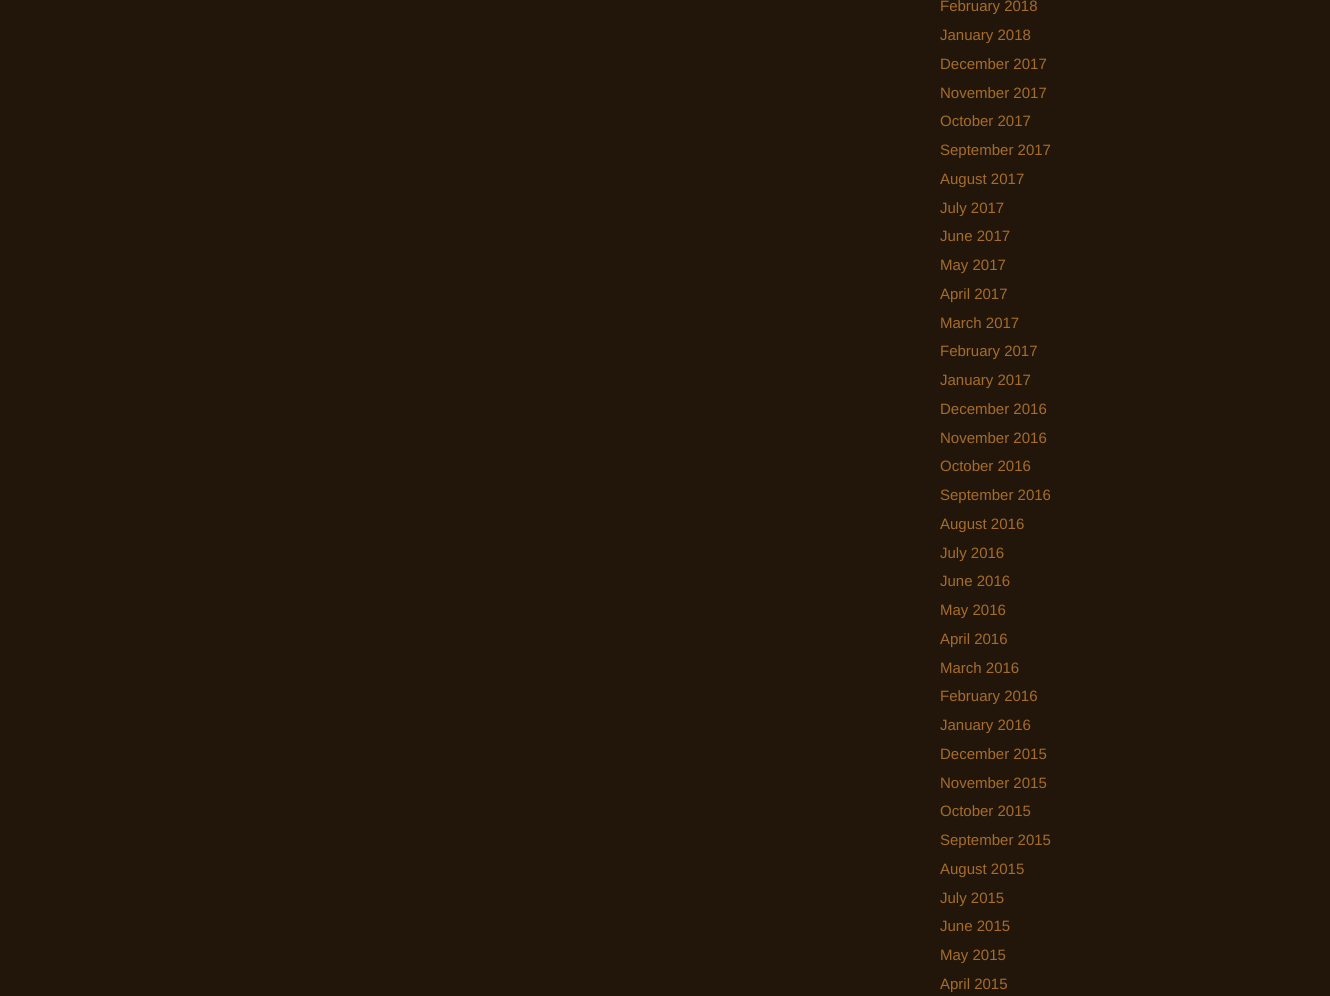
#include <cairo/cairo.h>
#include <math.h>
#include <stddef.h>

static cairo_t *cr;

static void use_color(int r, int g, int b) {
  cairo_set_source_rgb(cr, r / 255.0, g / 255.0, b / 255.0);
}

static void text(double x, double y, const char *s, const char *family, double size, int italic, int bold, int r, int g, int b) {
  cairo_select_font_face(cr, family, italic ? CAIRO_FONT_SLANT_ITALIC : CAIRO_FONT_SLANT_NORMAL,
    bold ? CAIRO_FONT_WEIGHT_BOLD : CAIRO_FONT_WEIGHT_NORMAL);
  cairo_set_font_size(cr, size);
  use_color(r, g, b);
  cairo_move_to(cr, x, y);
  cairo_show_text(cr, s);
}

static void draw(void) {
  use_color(34, 22, 11);
  cairo_paint(cr);
  text(940, 11, "February 2018", "Liberation Sans", 15, 0, 0, 166, 108, 42);
  text(940, 40, "January 2018", "Liberation Sans", 15, 0, 0, 166, 108, 42);
  text(940, 69, "December 2017", "Liberation Sans", 15, 0, 0, 166, 108, 42);
  text(940, 98, "November 2017", "Liberation Sans", 15, 0, 0, 166, 108, 42);
  text(940, 126, "October 2017", "Liberation Sans", 15, 0, 0, 166, 108, 42);
  text(940, 155, "September 2017", "Liberation Sans", 15, 0, 0, 166, 108, 42);
  text(940, 184, "August 2017", "Liberation Sans", 15, 0, 0, 166, 108, 42);
  text(940, 213, "July 2017", "Liberation Sans", 15, 0, 0, 166, 108, 42);
  text(940, 241, "June 2017", "Liberation Sans", 15, 0, 0, 166, 108, 42);
  text(940, 270, "May 2017", "Liberation Sans", 15, 0, 0, 166, 108, 42);
  text(940, 299, "April 2017", "Liberation Sans", 15, 0, 0, 166, 108, 42);
  text(940, 328, "March 2017", "Liberation Sans", 15, 0, 0, 166, 108, 42);
  text(940, 356, "February 2017", "Liberation Sans", 15, 0, 0, 166, 108, 42);
  text(940, 385, "January 2017", "Liberation Sans", 15, 0, 0, 166, 108, 42);
  text(940, 414, "December 2016", "Liberation Sans", 15, 0, 0, 166, 108, 42);
  text(940, 443, "November 2016", "Liberation Sans", 15, 0, 0, 166, 108, 42);
  text(940, 471, "October 2016", "Liberation Sans", 15, 0, 0, 166, 108, 42);
  text(940, 500, "September 2016", "Liberation Sans", 15, 0, 0, 166, 108, 42);
  text(940, 529, "August 2016", "Liberation Sans", 15, 0, 0, 166, 108, 42);
  text(940, 558, "July 2016", "Liberation Sans", 15, 0, 0, 166, 108, 42);
  text(940, 586, "June 2016", "Liberation Sans", 15, 0, 0, 166, 108, 42);
  text(940, 615, "May 2016", "Liberation Sans", 15, 0, 0, 166, 108, 42);
  text(940, 644, "April 2016", "Liberation Sans", 15, 0, 0, 166, 108, 42);
  text(940, 673, "March 2016", "Liberation Sans", 15, 0, 0, 166, 108, 42);
  text(940, 701, "February 2016", "Liberation Sans", 15, 0, 0, 166, 108, 42);
  text(940, 730, "January 2016", "Liberation Sans", 15, 0, 0, 166, 108, 42);
  text(940, 759, "December 2015", "Liberation Sans", 15, 0, 0, 166, 108, 42);
  text(940, 788, "November 2015", "Liberation Sans", 15, 0, 0, 166, 108, 42);
  text(940, 816, "October 2015", "Liberation Sans", 15, 0, 0, 166, 108, 42);
  text(940, 845, "September 2015", "Liberation Sans", 15, 0, 0, 166, 108, 42);
  text(940, 874, "August 2015", "Liberation Sans", 15, 0, 0, 166, 108, 42);
  text(940, 903, "July 2015", "Liberation Sans", 15, 0, 0, 166, 108, 42);
  text(940, 931, "June 2015", "Liberation Sans", 15, 0, 0, 166, 108, 42);
  text(940, 960, "May 2015", "Liberation Sans", 15, 0, 0, 166, 108, 42);
  text(940, 989, "April 2015", "Liberation Sans", 15, 0, 0, 166, 108, 42);
}

int main(void) {
  cairo_surface_t *surface = cairo_image_surface_create(CAIRO_FORMAT_RGB24, 1330, 996);
  cr = cairo_create(surface);
  cairo_font_options_t *options = cairo_font_options_create();
  cairo_font_options_set_hint_metrics(options, CAIRO_HINT_METRICS_OFF);
  cairo_font_options_set_hint_style(options, CAIRO_HINT_STYLE_NONE);
  cairo_set_font_options(cr, options);
  cairo_set_miter_limit(cr, 4);
  draw();
  cairo_surface_write_to_png(surface, "out.png");
  cairo_font_options_destroy(options);
  cairo_destroy(cr);
  cairo_surface_destroy(surface);
  return 0;
}
